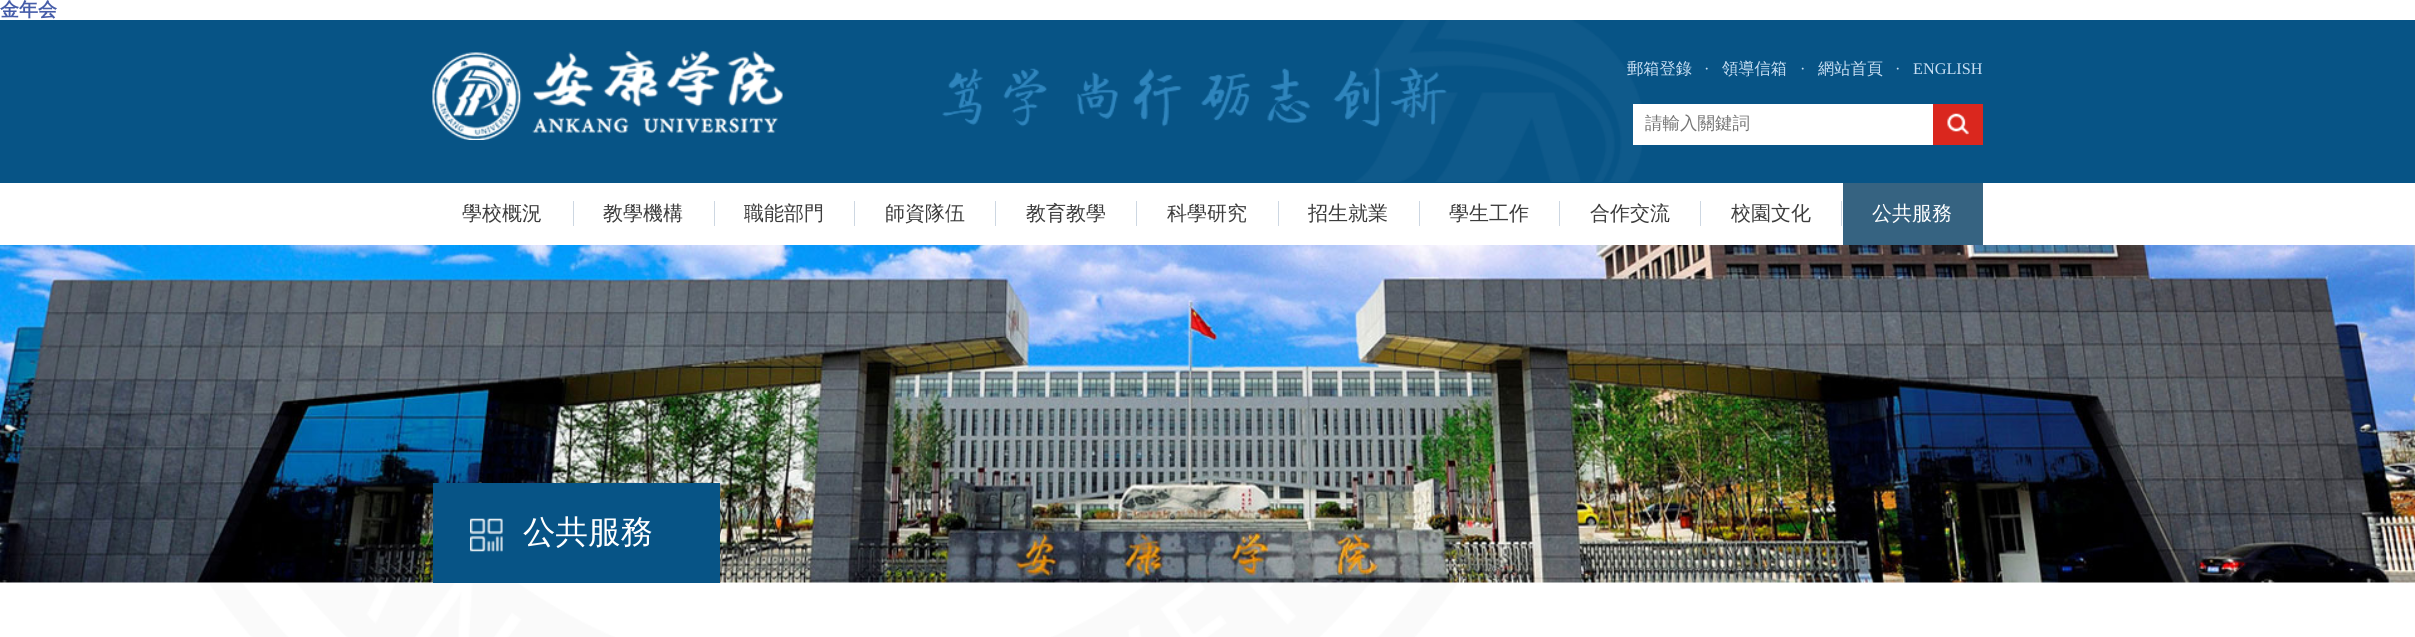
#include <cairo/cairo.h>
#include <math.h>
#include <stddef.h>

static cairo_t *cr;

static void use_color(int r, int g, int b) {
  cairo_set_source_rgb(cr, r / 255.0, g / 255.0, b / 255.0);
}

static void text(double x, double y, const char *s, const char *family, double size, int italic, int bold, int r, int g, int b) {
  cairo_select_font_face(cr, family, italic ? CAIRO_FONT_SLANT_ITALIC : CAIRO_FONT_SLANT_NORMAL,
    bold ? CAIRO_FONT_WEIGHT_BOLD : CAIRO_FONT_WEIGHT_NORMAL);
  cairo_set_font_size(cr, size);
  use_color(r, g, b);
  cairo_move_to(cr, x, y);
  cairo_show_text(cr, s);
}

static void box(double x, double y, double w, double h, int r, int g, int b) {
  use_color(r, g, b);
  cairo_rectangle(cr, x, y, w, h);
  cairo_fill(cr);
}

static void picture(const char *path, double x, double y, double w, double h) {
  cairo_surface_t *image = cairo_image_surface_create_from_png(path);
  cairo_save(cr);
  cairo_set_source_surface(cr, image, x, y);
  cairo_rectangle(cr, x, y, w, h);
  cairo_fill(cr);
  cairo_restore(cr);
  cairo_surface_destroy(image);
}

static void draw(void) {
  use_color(255, 255, 255);
  cairo_paint(cr);
  box(0, 20, 2415, 163, 7, 84, 134);
  picture("img_01.png", 942, 20, 700, 162);
  picture("img_02.png", 432, 51, 351, 89);
  box(1633, 104, 300, 41, 255, 255, 255);
  box(1933, 104, 50, 41, 218, 39, 30);
  picture("img_03.png", 1947, 113, 22, 22);
  box(573, 201, 1, 25, 205, 215, 226);
  box(714, 201, 1, 25, 205, 215, 226);
  box(854, 201, 1, 25, 205, 215, 226);
  box(995, 201, 1, 25, 205, 215, 226);
  box(1136, 201, 1, 25, 205, 215, 226);
  box(1278, 201, 1, 25, 205, 215, 226);
  box(1419, 201, 1, 25, 205, 215, 226);
  box(1559, 201, 1, 25, 205, 215, 226);
  box(1700, 201, 1, 25, 205, 215, 226);
  box(1841, 201, 1, 25, 205, 215, 226);
  box(1843, 183, 140, 62, 54, 99, 129);
  picture("img_04.png", 0, 245, 2415, 338);
  box(433, 483, 287, 100, 7, 84, 134);
  picture("img_05.png", 470, 518, 33, 34);
  picture("img_06.png", 210, 583, 1247, 54);
  text(0, 16, "金年会", "WenQuanYi Zen Hei", 19, 0, 1, 70, 93, 169);
  text(1627, 74, "郵箱登錄", "WenQuanYi Zen Hei Medium", 16.25, 0, 0, 200, 223, 244);
  text(1704, 74, "·", "Liberation Serif", 16.25, 0, 0, 200, 223, 244);
  text(1722, 74, "領導信箱", "WenQuanYi Zen Hei Medium", 16.25, 0, 0, 200, 223, 244);
  text(1800, 74, "·", "Liberation Serif", 16.25, 0, 0, 200, 223, 244);
  text(1818, 74, "網站首頁", "WenQuanYi Zen Hei Medium", 16.25, 0, 0, 200, 223, 244);
  text(1895, 74, "·", "Liberation Serif", 16.25, 0, 0, 200, 223, 244);
  text(1913, 74, "ENGLISH", "Liberation Serif", 16.25, 0, 0, 200, 223, 244);
  text(1645, 129, "請輸入關鍵詞", "WenQuanYi Zen Hei Medium", 17.5, 0, 0, 117, 117, 117);
  text(462, 220, "學校概況", "WenQuanYi Zen Hei Medium", 20, 0, 0, 60, 60, 60);
  text(603, 220, "教學機構", "WenQuanYi Zen Hei Medium", 20, 0, 0, 60, 60, 60);
  text(744, 220, "職能部門", "WenQuanYi Zen Hei Medium", 20, 0, 0, 60, 60, 60);
  text(885, 220, "師資隊伍", "WenQuanYi Zen Hei Medium", 20, 0, 0, 60, 60, 60);
  text(1026, 220, "教育教學", "WenQuanYi Zen Hei Medium", 20, 0, 0, 60, 60, 60);
  text(1167, 220, "科學研究", "WenQuanYi Zen Hei Medium", 20, 0, 0, 60, 60, 60);
  text(1308, 220, "招生就業", "WenQuanYi Zen Hei Medium", 20, 0, 0, 60, 60, 60);
  text(1449, 220, "學生工作", "WenQuanYi Zen Hei Medium", 20, 0, 0, 60, 60, 60);
  text(1590, 220, "合作交流", "WenQuanYi Zen Hei Medium", 20, 0, 0, 60, 60, 60);
  text(1731, 220, "校園文化", "WenQuanYi Zen Hei Medium", 20, 0, 0, 60, 60, 60);
  text(1872, 220, "公共服務", "WenQuanYi Zen Hei Medium", 20, 0, 0, 255, 255, 255);
  text(523, 543, "公共服務", "WenQuanYi Zen Hei Medium", 32.5, 0, 0, 255, 255, 255);
}

int main(void) {
  cairo_surface_t *surface = cairo_image_surface_create(CAIRO_FORMAT_RGB24, 2415, 637);
  cr = cairo_create(surface);
  cairo_font_options_t *options = cairo_font_options_create();
  cairo_font_options_set_hint_metrics(options, CAIRO_HINT_METRICS_OFF);
  cairo_font_options_set_hint_style(options, CAIRO_HINT_STYLE_NONE);
  cairo_set_font_options(cr, options);
  cairo_set_miter_limit(cr, 4);
  draw();
  cairo_surface_write_to_png(surface, "out.png");
  cairo_font_options_destroy(options);
  cairo_destroy(cr);
  cairo_surface_destroy(surface);
  return 0;
}
